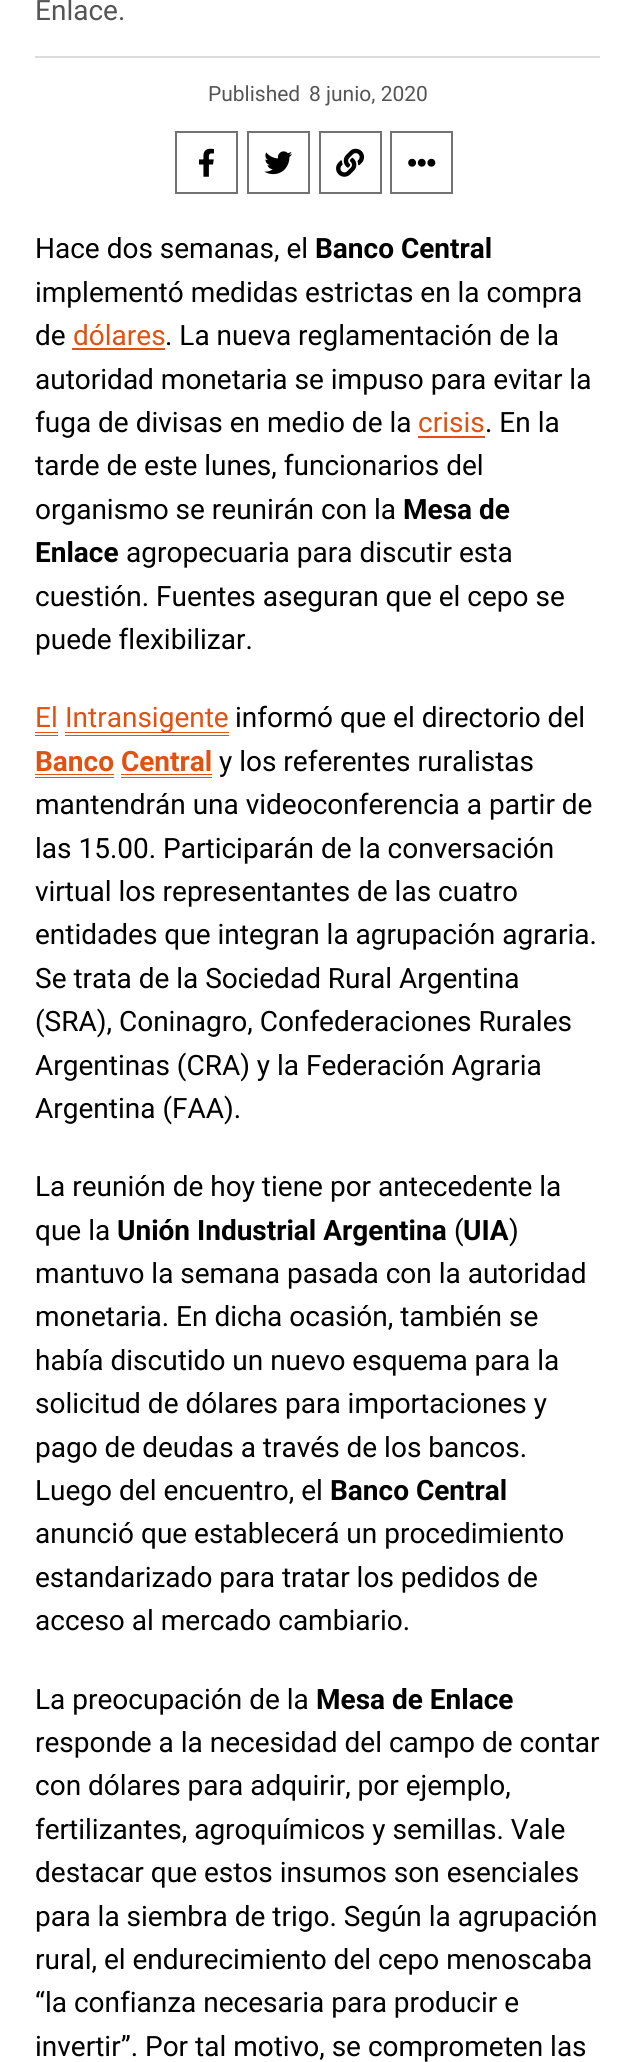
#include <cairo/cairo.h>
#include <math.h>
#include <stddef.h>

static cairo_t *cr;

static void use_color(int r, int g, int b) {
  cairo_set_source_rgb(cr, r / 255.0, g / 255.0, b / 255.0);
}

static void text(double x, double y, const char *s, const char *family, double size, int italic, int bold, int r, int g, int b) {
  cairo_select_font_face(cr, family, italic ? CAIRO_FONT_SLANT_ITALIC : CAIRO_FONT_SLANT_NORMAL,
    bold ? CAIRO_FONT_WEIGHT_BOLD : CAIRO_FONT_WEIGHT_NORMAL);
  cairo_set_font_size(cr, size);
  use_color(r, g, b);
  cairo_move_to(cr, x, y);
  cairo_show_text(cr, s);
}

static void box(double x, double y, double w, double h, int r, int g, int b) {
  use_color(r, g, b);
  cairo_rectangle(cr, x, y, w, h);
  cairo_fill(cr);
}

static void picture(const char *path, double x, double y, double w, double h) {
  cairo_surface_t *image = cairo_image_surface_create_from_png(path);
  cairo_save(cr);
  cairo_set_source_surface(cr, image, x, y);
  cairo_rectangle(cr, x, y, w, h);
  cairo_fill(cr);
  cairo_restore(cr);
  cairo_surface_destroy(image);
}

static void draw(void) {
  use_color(255, 255, 255);
  cairo_paint(cr);
  box(35, 56, 565, 2, 221, 221, 221);
  cairo_rectangle(cr, 176, 132, 61, 61);
  use_color(115, 115, 115);
  cairo_stroke(cr);
  picture("img_01.png", 199, 148, 15, 29);
  cairo_rectangle(cr, 248, 132, 61, 61);
  cairo_stroke(cr);
  picture("img_02.png", 264, 151, 29, 24);
  cairo_rectangle(cr, 320, 132, 61, 61);
  cairo_stroke(cr);
  picture("img_03.png", 336, 148, 28, 29);
  cairo_rectangle(cr, 391, 132, 61, 61);
  cairo_stroke(cr);
  picture("img_04.png", 408, 158, 28, 9);
  box(72, 348, 93, 2, 224, 82, 17);
  box(418, 436, 67, 2, 224, 82, 17);
  box(35, 732, 23, 4, 224, 82, 17);
  box(35, 733, 23, 2, 255, 255, 255);
  box(65, 732, 164, 4, 224, 82, 17);
  box(65, 733, 164, 2, 255, 255, 255);
  box(35, 774, 79, 4, 224, 82, 17);
  box(35, 775, 79, 2, 255, 255, 255);
  box(121, 774, 91, 4, 224, 82, 17);
  box(121, 775, 91, 2, 255, 255, 255);
  text(35, 20, "Enlace.", "Roboto", 28, 0, 0, 85, 85, 85);
  text(208, 101, "Published", "Roboto", 21, 0, 0, 85, 85, 85);
  text(309, 101, "8 junio, 2020", "Roboto", 21, 0, 0, 85, 85, 85);
  text(35, 258, "Hace dos semanas, el", "Roboto", 28, 0, 0, 0, 0, 0);
  text(315, 258, "Banco Central", "Roboto", 28, 0, 1, 0, 0, 0);
  text(35, 302, "implementó medidas estrictas en la compra", "Roboto", 28, 0, 0, 0, 0, 0);
  text(35, 345, "de", "Roboto", 28, 0, 0, 0, 0, 0);
  text(73, 345, "dólares", "Roboto", 28, 0, 0, 224, 82, 17);
  text(165, 345, ". La nueva reglamentación de la", "Roboto", 28, 0, 0, 0, 0, 0);
  text(35, 389, "autoridad monetaria se impuso para evitar la", "Roboto", 28, 0, 0, 0, 0, 0);
  text(35, 432, "fuga de divisas en medio de la", "Roboto", 28, 0, 0, 0, 0, 0);
  text(418, 432, "crisis", "Roboto", 28, 0, 0, 224, 82, 17);
  text(485, 432, ". En la", "Roboto", 28, 0, 0, 0, 0, 0);
  text(35, 475, "tarde de este lunes, funcionarios del", "Roboto", 28, 0, 0, 0, 0, 0);
  text(35, 519, "organismo se reunirán con la", "Roboto", 28, 0, 0, 0, 0, 0);
  text(403, 519, "Mesa de", "Roboto", 28, 0, 1, 0, 0, 0);
  text(35, 562, "Enlace", "Roboto", 28, 0, 1, 0, 0, 0);
  text(126, 562, "agropecuaria para discutir esta", "Roboto", 28, 0, 0, 0, 0, 0);
  text(35, 606, "cuestión. Fuentes aseguran que el cepo se", "Roboto", 28, 0, 0, 0, 0, 0);
  text(35, 649, "puede flexibilizar.", "Roboto", 28, 0, 0, 0, 0, 0);
  text(35, 727, "El", "Roboto", 28, 0, 0, 224, 82, 17);
  text(65, 727, "Intransigente", "Roboto", 28, 0, 0, 224, 82, 17);
  text(235, 727, "informó que el directorio del", "Roboto", 28, 0, 0, 0, 0, 0);
  text(35, 771, "Banco Central", "Roboto", 28, 0, 1, 224, 82, 17);
  text(219, 771, "y los referentes ruralistas", "Roboto", 28, 0, 0, 0, 0, 0);
  text(35, 814, "mantendrán una videoconferencia a partir de", "Roboto", 28, 0, 0, 0, 0, 0);
  text(35, 858, "las 15.00. Participarán de la conversación", "Roboto", 28, 0, 0, 0, 0, 0);
  text(35, 901, "virtual los representantes de las cuatro", "Roboto", 28, 0, 0, 0, 0, 0);
  text(35, 944, "entidades que integran la agrupación agraria.", "Roboto", 28, 0, 0, 0, 0, 0);
  text(35, 988, "Se trata de la Sociedad Rural Argentina", "Roboto", 28, 0, 0, 0, 0, 0);
  text(35, 1031, "(SRA), Coninagro, Confederaciones Rurales", "Roboto", 28, 0, 0, 0, 0, 0);
  text(35, 1075, "Argentinas (CRA) y la Federación Agraria", "Roboto", 28, 0, 0, 0, 0, 0);
  text(35, 1118, "Argentina (FAA).", "Roboto", 28, 0, 0, 0, 0, 0);
  text(35, 1196, "La reunión de hoy tiene por antecedente la", "Roboto", 28, 0, 0, 0, 0, 0);
  text(35, 1240, "que la", "Roboto", 28, 0, 0, 0, 0, 0);
  text(117, 1240, "Unión Industrial Argentina", "Roboto", 28, 0, 1, 0, 0, 0);
  text(454, 1240, "(", "Roboto", 28, 0, 0, 0, 0, 0);
  text(463, 1240, "UIA", "Roboto", 28, 0, 1, 0, 0, 0);
  text(509, 1240, ")", "Roboto", 28, 0, 0, 0, 0, 0);
  text(35, 1283, "mantuvo la semana pasada con la autoridad", "Roboto", 28, 0, 0, 0, 0, 0);
  text(35, 1326, "monetaria. En dicha ocasión, también se", "Roboto", 28, 0, 0, 0, 0, 0);
  text(35, 1370, "había discutido un nuevo esquema para la", "Roboto", 28, 0, 0, 0, 0, 0);
  text(35, 1413, "solicitud de dólares para importaciones y", "Roboto", 28, 0, 0, 0, 0, 0);
  text(35, 1457, "pago de deudas a través de los bancos.", "Roboto", 28, 0, 0, 0, 0, 0);
  text(35, 1500, "Luego del encuentro, el", "Roboto", 28, 0, 0, 0, 0, 0);
  text(330, 1500, "Banco Central", "Roboto", 28, 0, 1, 0, 0, 0);
  text(35, 1543, "anunció que establecerá un procedimiento", "Roboto", 28, 0, 0, 0, 0, 0);
  text(35, 1587, "estandarizado para tratar los pedidos de", "Roboto", 28, 0, 0, 0, 0, 0);
  text(35, 1630, "acceso al mercado cambiario.", "Roboto", 28, 0, 0, 0, 0, 0);
  text(35, 1709, "La preocupación de la", "Roboto", 28, 0, 0, 0, 0, 0);
  text(316, 1709, "Mesa de Enlace", "Roboto", 28, 0, 1, 0, 0, 0);
  text(35, 1752, "responde a la necesidad del campo de contar", "Roboto", 28, 0, 0, 0, 0, 0);
  text(35, 1795, "con dólares para adquirir, por ejemplo,", "Roboto", 28, 0, 0, 0, 0, 0);
  text(35, 1839, "fertilizantes, agroquímicos y semillas. Vale", "Roboto", 28, 0, 0, 0, 0, 0);
  text(35, 1882, "destacar que estos insumos son esenciales", "Roboto", 28, 0, 0, 0, 0, 0);
  text(35, 1926, "para la siembra de trigo. Según la agrupación", "Roboto", 28, 0, 0, 0, 0, 0);
  text(35, 1969, "rural, el endurecimiento del cepo menoscaba", "Roboto", 28, 0, 0, 0, 0, 0);
  text(35, 2012, "“la confianza necesaria para producir e", "Roboto", 28, 0, 0, 0, 0, 0);
  text(35, 2056, "invertir”. Por tal motivo, se comprometen las", "Roboto", 28, 0, 0, 0, 0, 0);
}

int main(void) {
  cairo_surface_t *surface = cairo_image_surface_create(CAIRO_FORMAT_RGB24, 635, 2062);
  cr = cairo_create(surface);
  cairo_font_options_t *options = cairo_font_options_create();
  cairo_font_options_set_hint_metrics(options, CAIRO_HINT_METRICS_OFF);
  cairo_font_options_set_hint_style(options, CAIRO_HINT_STYLE_NONE);
  cairo_set_font_options(cr, options);
  cairo_set_miter_limit(cr, 4);
  draw();
  cairo_surface_write_to_png(surface, "out.png");
  cairo_font_options_destroy(options);
  cairo_destroy(cr);
  cairo_surface_destroy(surface);
  return 0;
}
